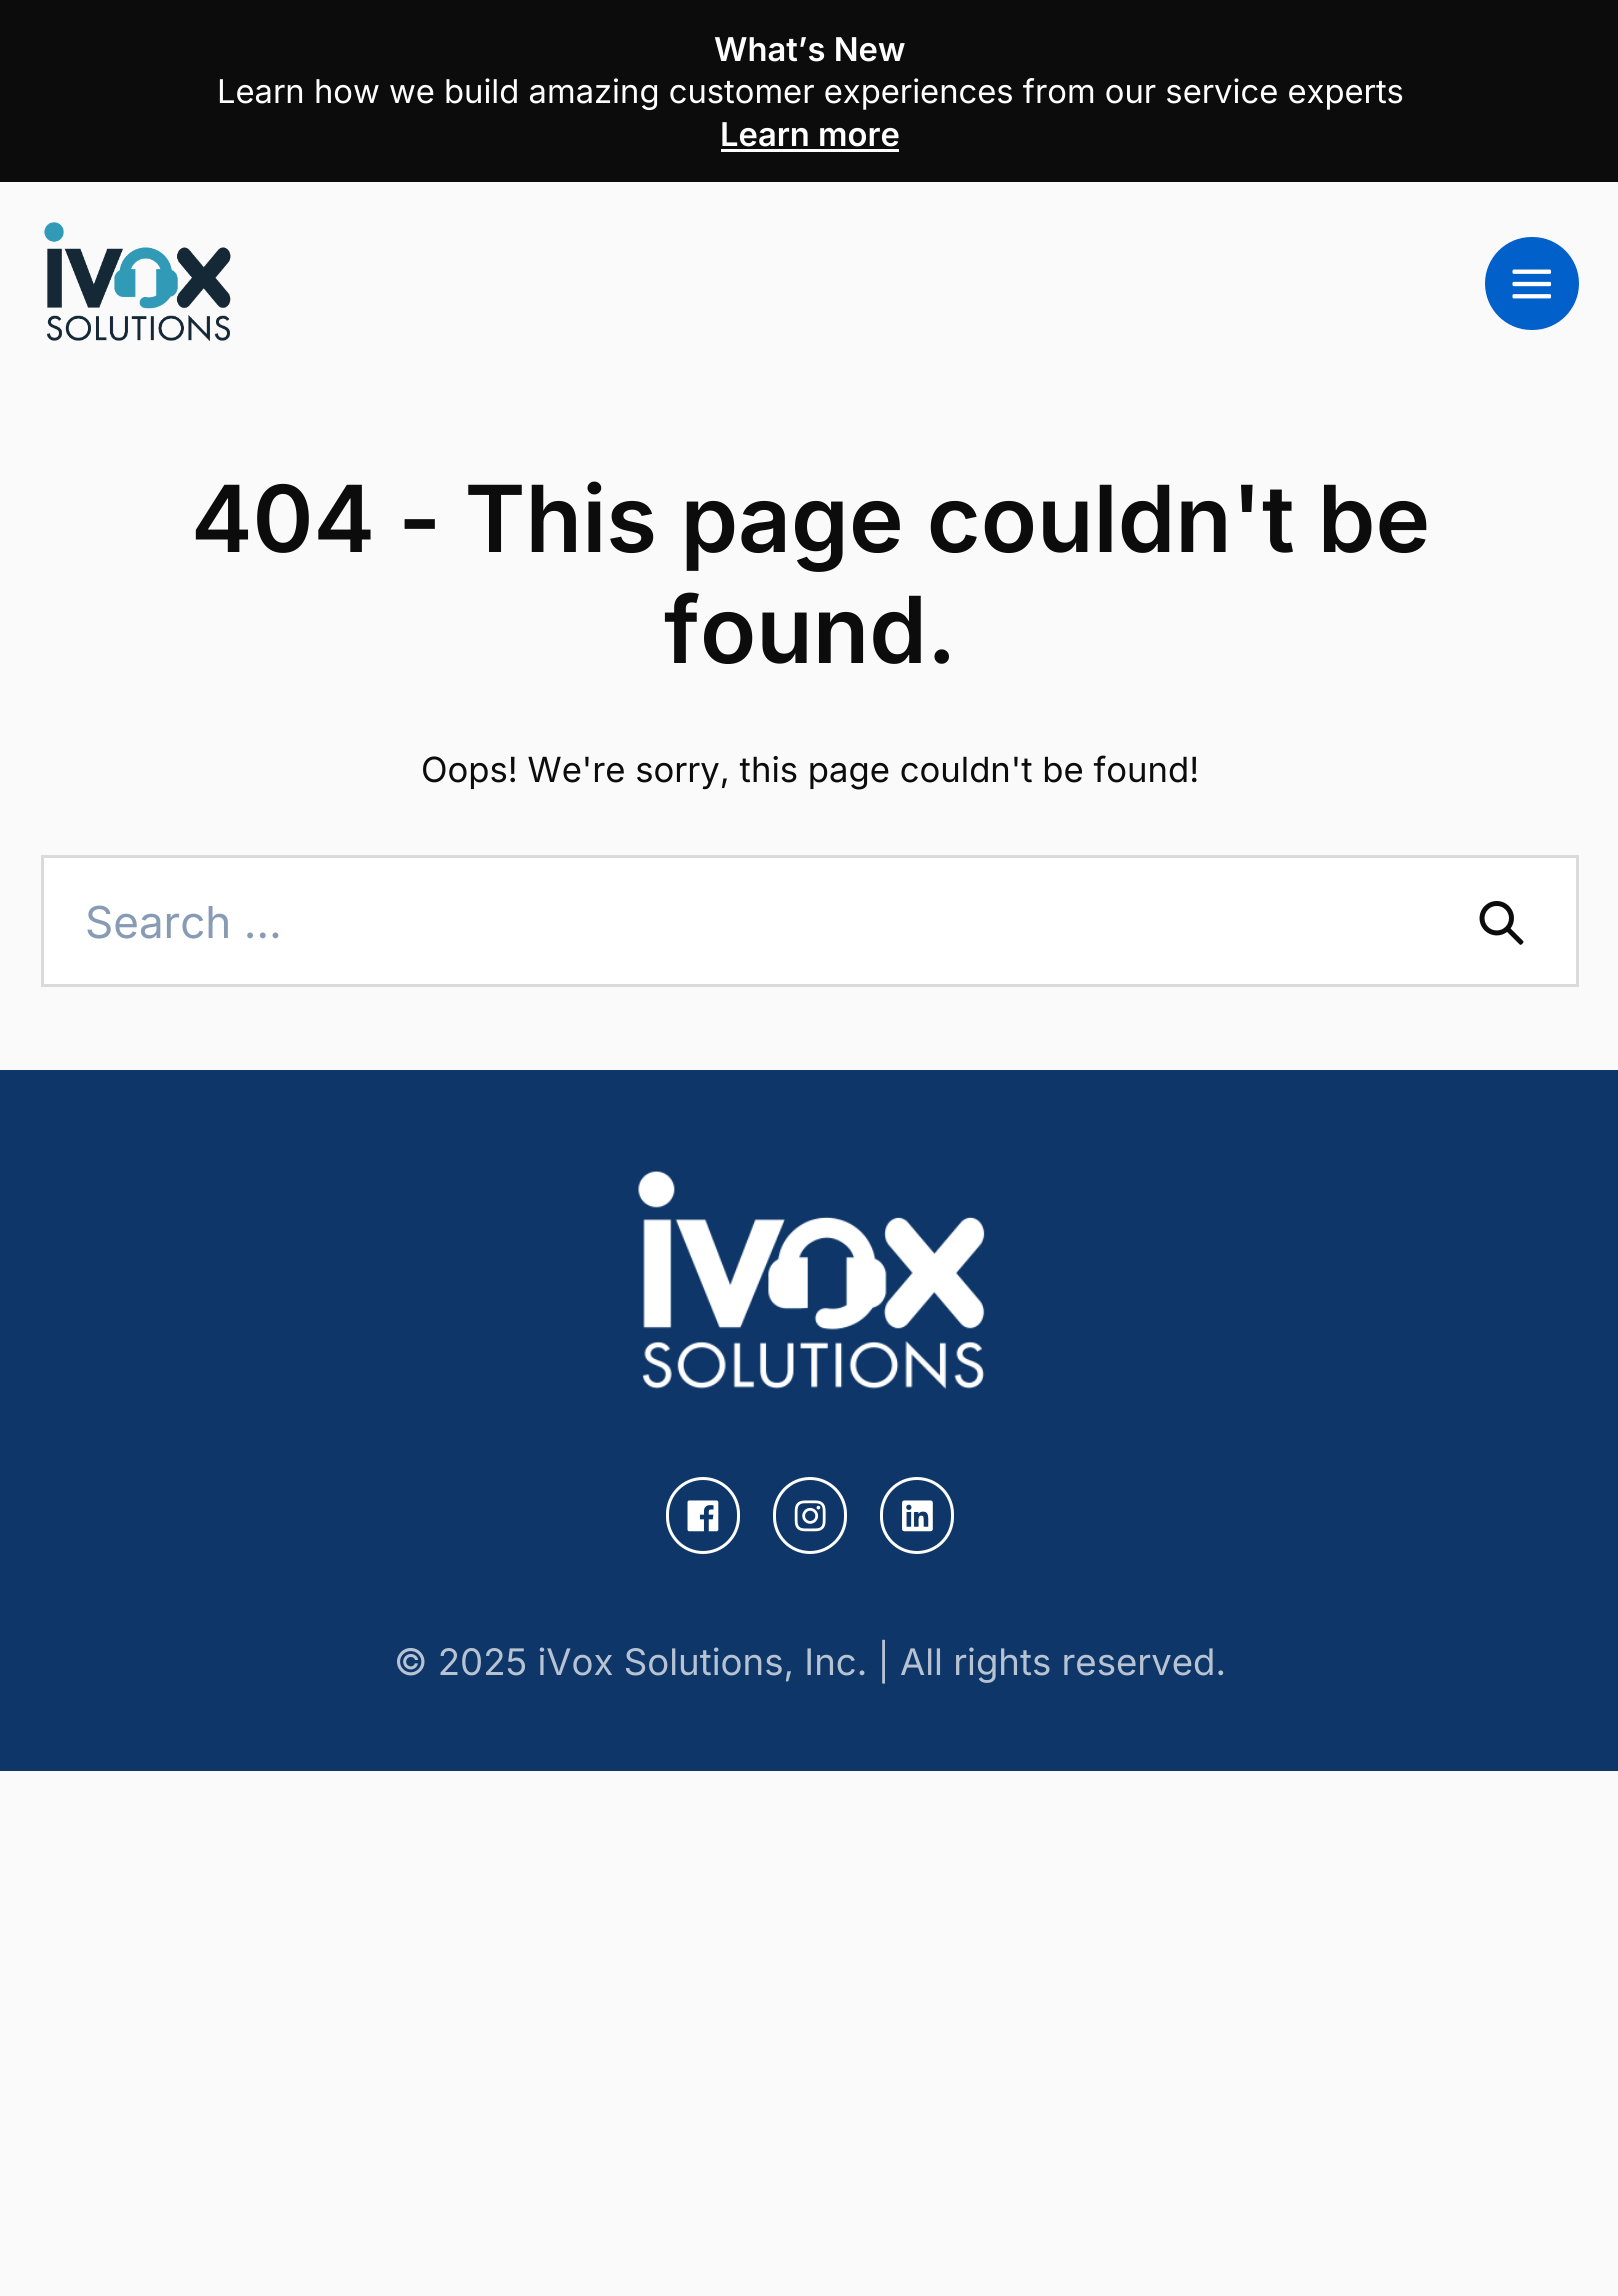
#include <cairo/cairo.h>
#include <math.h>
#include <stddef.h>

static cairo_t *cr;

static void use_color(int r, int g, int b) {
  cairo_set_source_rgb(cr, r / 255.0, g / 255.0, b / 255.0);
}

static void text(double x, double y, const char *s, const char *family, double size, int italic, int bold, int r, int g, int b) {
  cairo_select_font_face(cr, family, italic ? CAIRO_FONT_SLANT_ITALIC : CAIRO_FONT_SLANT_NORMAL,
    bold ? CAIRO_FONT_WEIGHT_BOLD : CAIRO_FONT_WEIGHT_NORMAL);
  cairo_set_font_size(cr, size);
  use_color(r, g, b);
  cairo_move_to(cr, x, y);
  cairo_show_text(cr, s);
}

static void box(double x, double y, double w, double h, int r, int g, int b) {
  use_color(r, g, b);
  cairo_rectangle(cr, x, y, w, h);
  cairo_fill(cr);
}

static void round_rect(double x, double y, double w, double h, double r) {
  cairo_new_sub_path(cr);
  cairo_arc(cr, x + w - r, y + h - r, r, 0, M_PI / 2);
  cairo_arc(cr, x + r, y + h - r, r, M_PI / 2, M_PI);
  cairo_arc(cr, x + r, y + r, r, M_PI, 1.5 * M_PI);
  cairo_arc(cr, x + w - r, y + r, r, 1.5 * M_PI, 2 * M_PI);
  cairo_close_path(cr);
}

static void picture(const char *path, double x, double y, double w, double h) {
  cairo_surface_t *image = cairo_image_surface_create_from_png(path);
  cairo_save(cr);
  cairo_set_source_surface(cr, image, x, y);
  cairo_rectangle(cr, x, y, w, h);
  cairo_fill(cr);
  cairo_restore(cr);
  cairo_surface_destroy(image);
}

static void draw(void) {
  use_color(250, 250, 250);
  cairo_paint(cr);
  box(0, 0, 1618, 182, 12, 12, 12);
  box(721, 149, 178, 3, 255, 255, 255);
  picture("img_01.png", 44, 222, 187, 119);
  use_color(1, 96, 201);
  round_rect(1485, 237, 94, 93, 46.5);
  cairo_fill(cr);
  picture("img_02.png", 1512, 269, 40, 30);
  use_color(255, 255, 255);
  cairo_rectangle(cr, 42.5, 856.5, 1535, 129);
  cairo_fill_preserve(cr);
  use_color(218, 218, 218);
  cairo_set_line_width(cr, 3);
  cairo_stroke(cr);
  picture("img_03.png", 1479, 901, 45, 44);
  box(0, 1070, 1618, 701, 14, 54, 104);
  picture("img_04.png", 638, 1171, 347, 218);
  round_rect(667.5, 1478.5, 71, 74, 35.5);
  use_color(255, 255, 255);
  cairo_stroke(cr);
  picture("img_05.png", 687, 1500, 32, 32);
  round_rect(774.5, 1478.5, 71, 74, 35.5);
  cairo_stroke(cr);
  picture("img_06.png", 794, 1500, 32, 32);
  round_rect(881.5, 1478.5, 71, 74, 35.5);
  cairo_stroke(cr);
  picture("img_07.png", 902, 1500, 31, 32);
  text(714, 61, "What’s New", "Inter SemiBold", 32.75, 0, 0, 255, 255, 255);
  text(217, 103, "Learn how we build amazing customer experiences from our service experts", "Inter", 32.75, 0, 0, 255, 255, 255);
  text(720, 146, "Learn more", "Inter SemiBold", 32.75, 0, 0, 255, 255, 255);
  text(191, 552, "404 - This page couldn't be", "Inter SemiBold", 92.4, 0, 0, 12, 12, 12);
  text(664, 663, "found.", "Inter SemiBold", 92.4, 0, 0, 12, 12, 12);
  text(421, 782, "Oops! We're sorry, this page couldn't be found!", "Inter", 34.65, 0, 0, 12, 12, 12);
  text(85, 938, "Search …", "Inter", 44, 0, 0, 135, 155, 180);
  text(394, 1675, "© 2025 iVox Solutions, Inc. | All rights reserved.", "Inter", 36.6, 0, 0, 183, 195, 210);
}

int main(void) {
  cairo_surface_t *surface = cairo_image_surface_create(CAIRO_FORMAT_RGB24, 1618, 2296);
  cr = cairo_create(surface);
  cairo_font_options_t *options = cairo_font_options_create();
  cairo_font_options_set_hint_metrics(options, CAIRO_HINT_METRICS_OFF);
  cairo_font_options_set_hint_style(options, CAIRO_HINT_STYLE_NONE);
  cairo_set_font_options(cr, options);
  cairo_set_miter_limit(cr, 4);
  draw();
  cairo_surface_write_to_png(surface, "out.png");
  cairo_font_options_destroy(options);
  cairo_destroy(cr);
  cairo_surface_destroy(surface);
  return 0;
}
